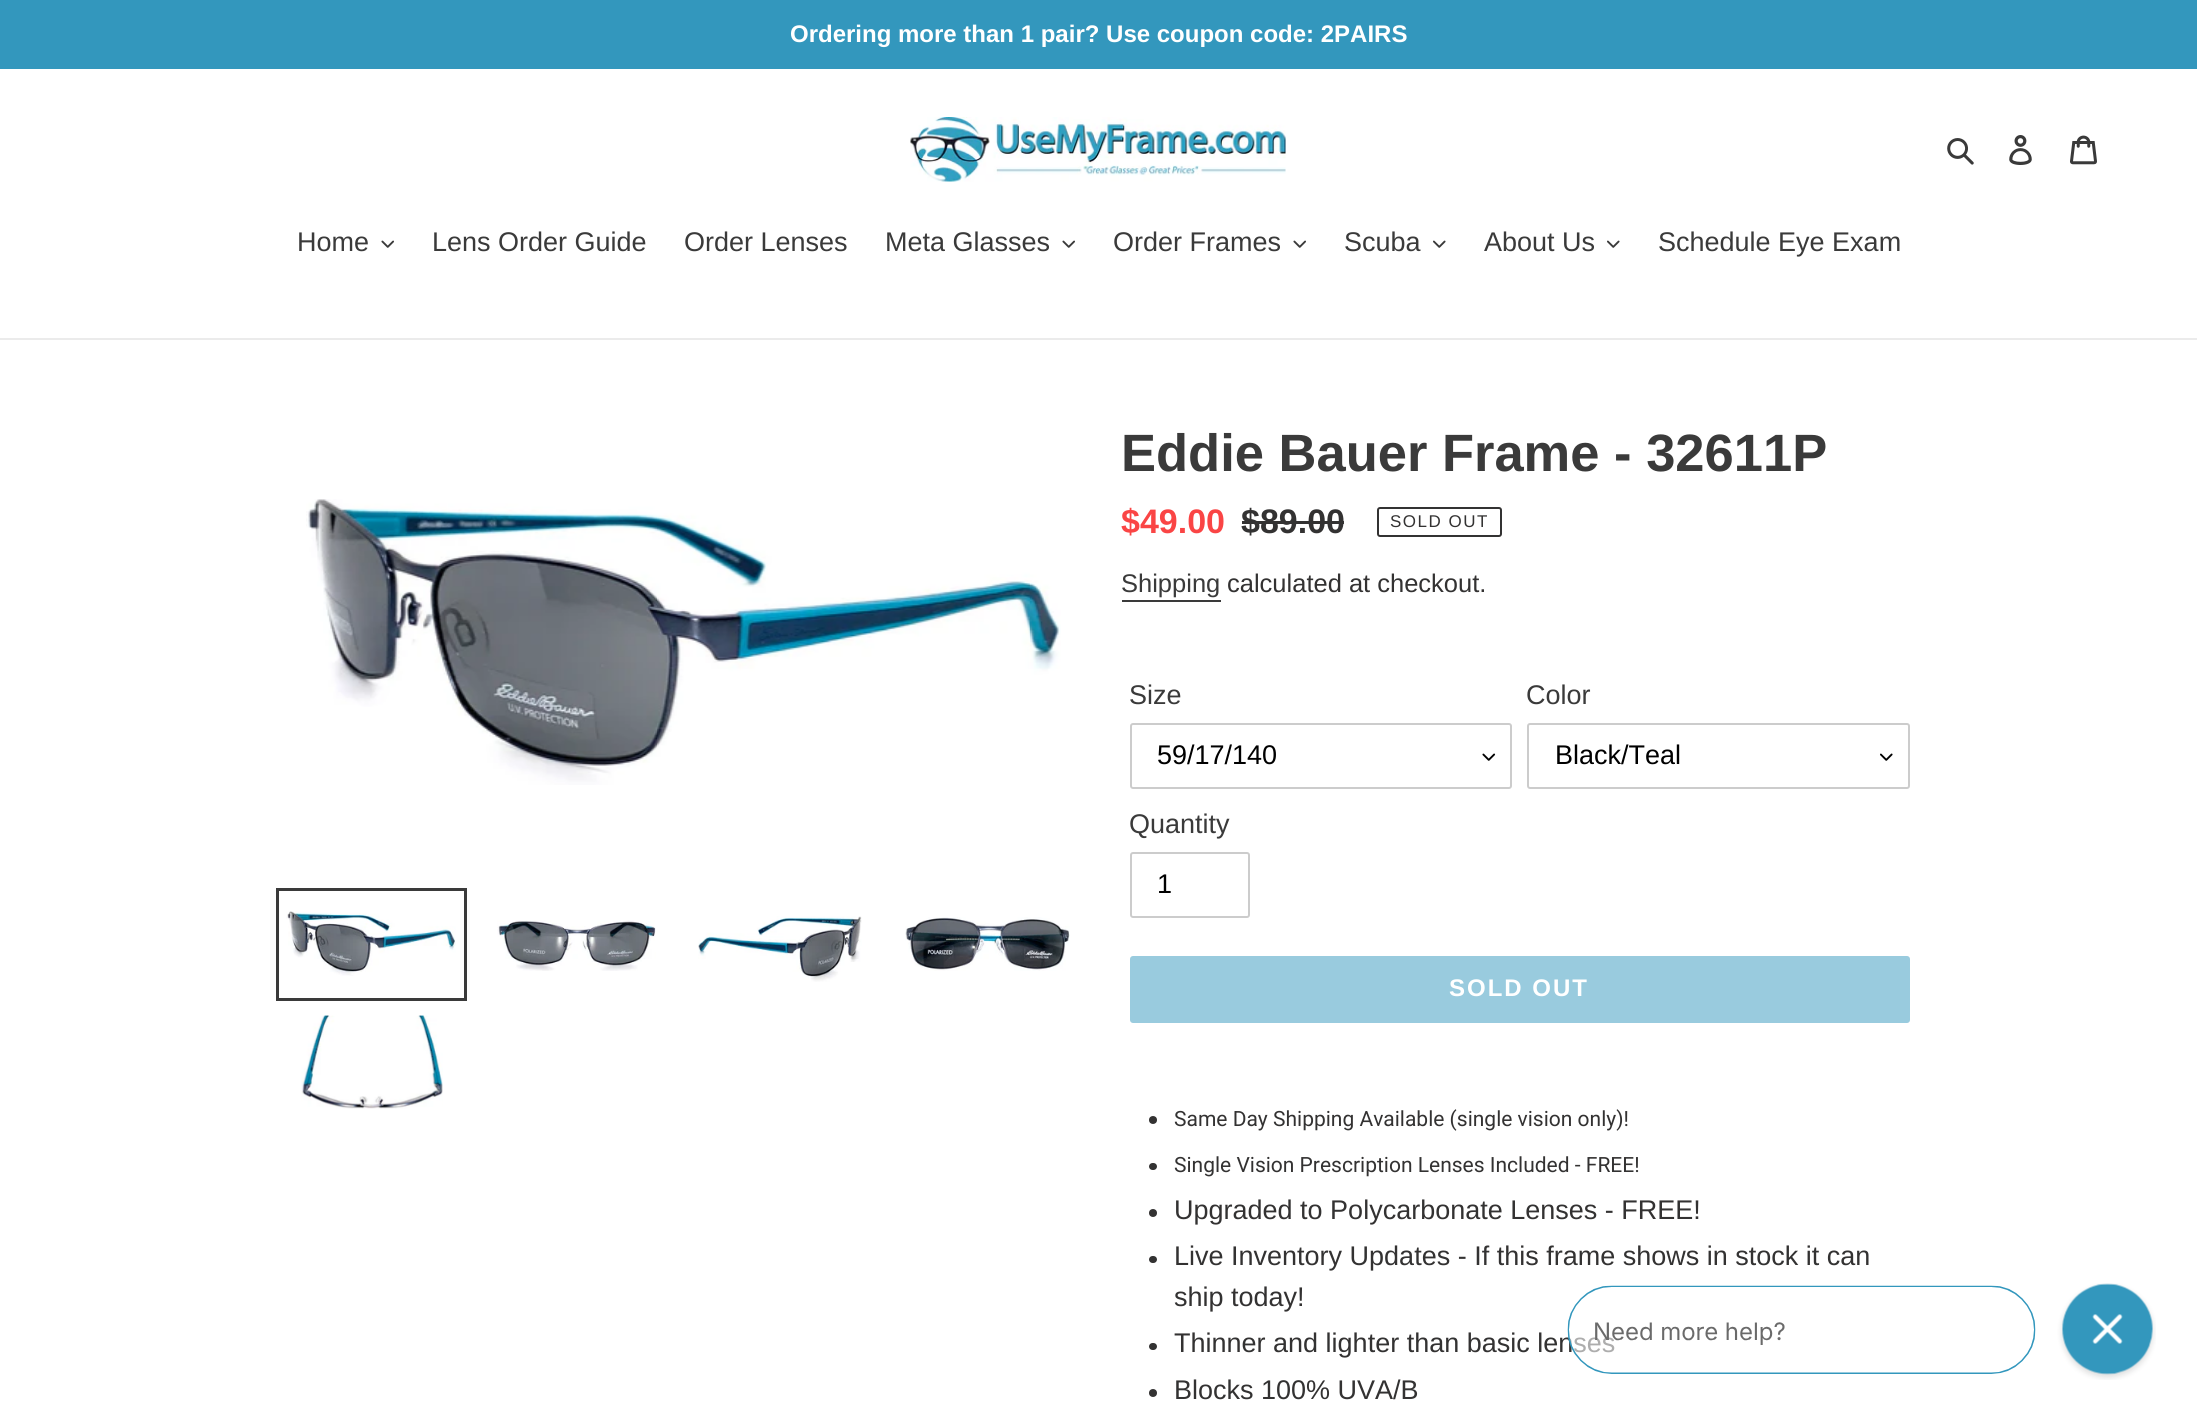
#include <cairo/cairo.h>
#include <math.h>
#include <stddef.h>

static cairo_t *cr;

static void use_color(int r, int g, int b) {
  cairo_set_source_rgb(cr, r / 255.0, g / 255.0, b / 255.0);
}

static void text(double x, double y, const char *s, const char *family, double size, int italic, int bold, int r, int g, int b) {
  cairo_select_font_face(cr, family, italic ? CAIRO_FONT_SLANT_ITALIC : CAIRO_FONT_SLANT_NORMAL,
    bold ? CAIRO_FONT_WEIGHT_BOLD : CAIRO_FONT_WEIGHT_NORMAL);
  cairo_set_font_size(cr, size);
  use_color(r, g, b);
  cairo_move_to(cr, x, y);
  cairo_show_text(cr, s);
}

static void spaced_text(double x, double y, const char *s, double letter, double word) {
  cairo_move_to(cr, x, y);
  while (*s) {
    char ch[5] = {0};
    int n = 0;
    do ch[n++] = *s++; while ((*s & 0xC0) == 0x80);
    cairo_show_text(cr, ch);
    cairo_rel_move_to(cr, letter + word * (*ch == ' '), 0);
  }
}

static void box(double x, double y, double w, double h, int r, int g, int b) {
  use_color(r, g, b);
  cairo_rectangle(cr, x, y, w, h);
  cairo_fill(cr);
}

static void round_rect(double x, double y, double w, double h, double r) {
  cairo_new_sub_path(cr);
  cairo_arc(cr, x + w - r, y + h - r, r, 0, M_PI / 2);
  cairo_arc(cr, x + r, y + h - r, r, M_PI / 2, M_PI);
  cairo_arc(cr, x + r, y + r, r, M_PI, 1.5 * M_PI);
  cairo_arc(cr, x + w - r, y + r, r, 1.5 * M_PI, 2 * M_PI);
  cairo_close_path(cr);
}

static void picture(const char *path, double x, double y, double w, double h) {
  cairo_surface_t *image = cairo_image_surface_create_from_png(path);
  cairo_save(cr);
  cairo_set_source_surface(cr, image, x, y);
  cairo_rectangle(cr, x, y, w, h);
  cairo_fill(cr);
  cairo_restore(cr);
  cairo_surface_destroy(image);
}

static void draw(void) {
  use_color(255, 255, 255);
  cairo_paint(cr);
  box(0, 0, 2197, 69, 51, 151, 189);
  picture("img_01.png", 910, 117, 376, 65);
  picture("img_02.png", 1947, 138, 27, 27);
  picture("img_03.png", 2009, 135, 23, 30);
  picture("img_04.png", 2070, 135, 27, 30);
  box(0, 338, 2197, 2, 235, 235, 235);
  picture("img_05.png", 381, 240, 13, 8);
  picture("img_05.png", 1062, 240, 13, 8);
  picture("img_05.png", 1293, 240, 13, 8);
  picture("img_06.png", 1433, 240, 13, 8);
  picture("img_06.png", 1607, 240, 13, 8);
  picture("img_07.png", 306, 499, 755, 286);
  cairo_rectangle(cr, 277.5, 889.5, 188, 110);
  use_color(58, 58, 58);
  cairo_set_line_width(cr, 3);
  cairo_stroke(cr);
  picture("img_08.png", 286, 911, 170, 65);
  picture("img_09.png", 497, 920, 159, 51);
  picture("img_10.png", 698, 916, 164, 66);
  picture("img_11.png", 905, 917, 165, 54);
  picture("img_12.png", 301, 1015, 142, 94);
  box(1242, 521, 102, 3, 51, 50, 50);
  round_rect(1378, 508, 123, 28, 2);
  cairo_set_line_width(cr, 2);
  cairo_stroke(cr);
  box(1122, 600, 99, 2, 58, 58, 58);
  picture("img_13.png", 1482, 753, 14, 8);
  round_rect(1131, 724, 380, 64, 2);
  use_color(204, 204, 204);
  cairo_stroke(cr);
  picture("img_14.png", 1880, 753, 13, 8);
  round_rect(1528, 724, 381, 64, 2);
  cairo_stroke(cr);
  round_rect(1131, 853, 118, 64, 2);
  cairo_stroke(cr);
  use_color(153, 203, 222);
  round_rect(1130, 956, 780, 67, 3);
  cairo_fill(cr);
  use_color(51, 50, 50);
  cairo_arc(cr, 1153, 1120, 4, 0, 2 * M_PI);
  cairo_fill(cr);
  round_rect(1149, 1163, 8, 7, 3.5);
  cairo_fill(cr);
  cairo_arc(cr, 1153, 1213, 4, 0, 2 * M_PI);
  cairo_fill(cr);
  round_rect(1149, 1256, 8, 7, 3.5);
  cairo_fill(cr);
  round_rect(1149, 1343, 8, 7, 3.5);
  cairo_fill(cr);
  cairo_arc(cr, 1153, 1393, 4, 0, 2 * M_PI);
  cairo_fill(cr);
  text(790, 42, "Ordering more than 1 pair? Use coupon code: 2PAIRS", "Liberation Sans", 24, 0, 1, 255, 255, 255);
  text(297, 251, "Home", "Liberation Sans", 27, 0, 0, 58, 58, 58);
  text(432, 251, "Lens Order Guide", "Liberation Sans", 27, 0, 0, 58, 58, 58);
  text(684, 251, "Order Lenses", "Liberation Sans", 27, 0, 0, 58, 58, 58);
  text(885, 251, "Meta Glasses", "Liberation Sans", 27, 0, 0, 58, 58, 58);
  text(1113, 251, "Order Frames", "Liberation Sans", 27, 0, 0, 58, 58, 58);
  text(1344, 251, "Scuba", "Liberation Sans", 27, 0, 0, 58, 58, 58);
  text(1484, 251, "About Us", "Liberation Sans", 27, 0, 0, 58, 58, 58);
  text(1658, 251, "Schedule Eye Exam", "Liberation Sans", 27, 0, 0, 58, 58, 58);
  text(1121, 471, "Eddie Bauer Frame - 32611P", "Liberation Sans", 52.5, 0, 1, 58, 58, 58);
  text(1121, 533, "$49.00", "Liberation Sans", 34, 0, 1, 250, 69, 69);
  text(1241, 533, "$89.00", "Liberation Sans", 34, 0, 1, 51, 50, 50);
  cairo_select_font_face(cr, "Liberation Sans", CAIRO_FONT_SLANT_NORMAL, CAIRO_FONT_WEIGHT_NORMAL);
  cairo_set_font_size(cr, 17);
  spaced_text(1390, 527, "SOLD OUT", 1.5, 0);
  text(1121, 592, "Shipping", "Liberation Sans", 25.5, 0, 0, 58, 58, 58);
  text(1227, 592, "calculated at checkout.", "Liberation Sans", 25.5, 0, 0, 51, 50, 50);
  text(1129, 704, "Size", "Liberation Sans", 27, 0, 0, 58, 58, 58);
  text(1157, 764, "59/17/140", "Liberation Sans", 27, 0, 0, 0, 0, 0);
  text(1526, 704, "Color", "Liberation Sans", 27, 0, 0, 58, 58, 58);
  text(1555, 764, "Black/Teal", "Liberation Sans", 27, 0, 0, 0, 0, 0);
  text(1129, 833, "Quantity", "Liberation Sans", 27, 0, 0, 58, 58, 58);
  text(1157, 893, "1", "Liberation Sans", 27, 0, 0, 0, 0, 0);
  cairo_select_font_face(cr, "Liberation Sans", CAIRO_FONT_SLANT_NORMAL, CAIRO_FONT_WEIGHT_BOLD);
  cairo_set_font_size(cr, 24);
  use_color(255, 255, 255);
  spaced_text(1449, 996, "SOLD OUT", 2, 0);
  text(1174, 1126, "Same Day Shipping Available (single vision only)!", "Roboto", 21, 0, 0, 51, 50, 50);
  text(1174, 1172, "Single Vision Prescription Lenses Included - FREE!", "Roboto", 21, 0, 0, 51, 50, 50);
  text(1174, 1219, "Upgraded to Polycarbonate Lenses - FREE!", "Liberation Sans", 27, 0, 0, 51, 50, 50);
  text(1174, 1265, "Live Inventory Updates - If this frame shows in stock it can", "Liberation Sans", 27, 0, 0, 51, 50, 50);
  text(1174, 1306, "ship today!", "Liberation Sans", 27, 0, 0, 51, 50, 50);
  text(1174, 1352, "Thinner and lighter than basic lenses", "Liberation Sans", 27, 0, 0, 51, 50, 50);
  text(1174, 1399, "Blocks 100% UVA/B", "Liberation Sans", 27, 0, 0, 51, 50, 50);
  picture("img_15.png", 1567, 1283, 589, 97);
}

int main(void) {
  cairo_surface_t *surface = cairo_image_surface_create(CAIRO_FORMAT_RGB24, 2197, 1414);
  cr = cairo_create(surface);
  cairo_font_options_t *options = cairo_font_options_create();
  cairo_font_options_set_hint_metrics(options, CAIRO_HINT_METRICS_OFF);
  cairo_font_options_set_hint_style(options, CAIRO_HINT_STYLE_NONE);
  cairo_set_font_options(cr, options);
  cairo_set_miter_limit(cr, 4);
  draw();
  cairo_surface_write_to_png(surface, "out.png");
  cairo_font_options_destroy(options);
  cairo_destroy(cr);
  cairo_surface_destroy(surface);
  return 0;
}
